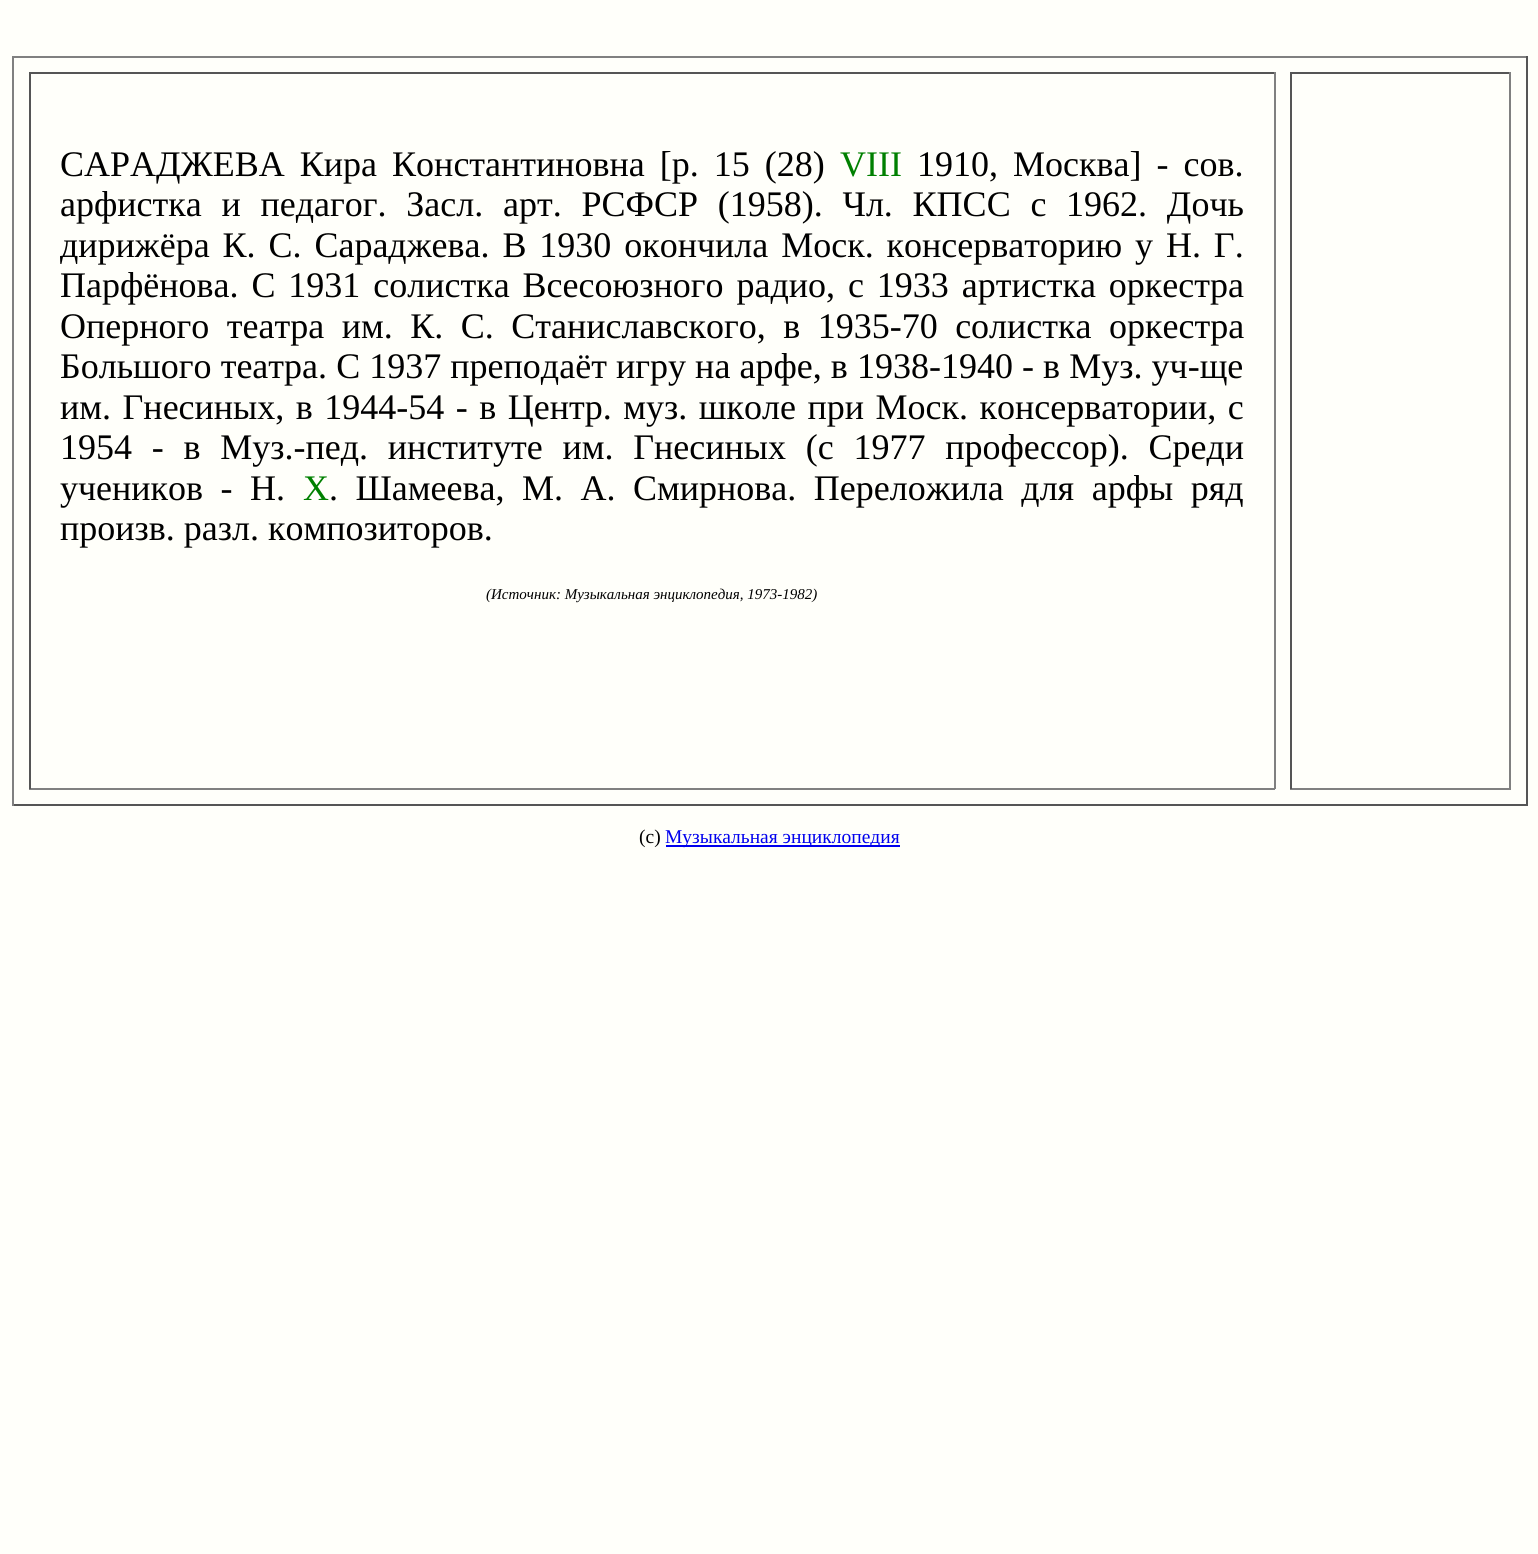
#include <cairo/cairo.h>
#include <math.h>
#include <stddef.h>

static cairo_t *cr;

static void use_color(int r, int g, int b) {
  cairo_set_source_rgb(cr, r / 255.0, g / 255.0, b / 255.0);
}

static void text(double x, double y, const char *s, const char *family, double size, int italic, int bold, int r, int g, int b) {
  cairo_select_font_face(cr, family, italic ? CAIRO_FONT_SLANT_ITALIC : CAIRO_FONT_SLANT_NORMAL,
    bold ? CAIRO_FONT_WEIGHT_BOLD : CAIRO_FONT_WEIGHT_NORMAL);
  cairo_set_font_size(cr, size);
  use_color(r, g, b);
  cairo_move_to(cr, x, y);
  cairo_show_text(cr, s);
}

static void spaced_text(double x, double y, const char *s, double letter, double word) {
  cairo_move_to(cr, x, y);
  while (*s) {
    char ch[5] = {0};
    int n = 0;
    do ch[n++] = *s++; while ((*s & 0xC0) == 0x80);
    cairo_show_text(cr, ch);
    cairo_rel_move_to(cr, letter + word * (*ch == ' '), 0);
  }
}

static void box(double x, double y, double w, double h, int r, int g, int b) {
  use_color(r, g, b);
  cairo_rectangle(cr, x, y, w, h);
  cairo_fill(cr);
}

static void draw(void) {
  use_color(255, 255, 250);
  cairo_paint(cr);
  box(12, 56, 1515, 2, 128, 128, 128);
  box(1526, 56, 2, 750, 85, 85, 85);
  box(12, 804, 1515, 2, 85, 85, 85);
  box(12, 56, 2, 750, 128, 128, 128);
  box(29, 72, 1246, 2, 85, 85, 85);
  box(1274, 72, 2, 717, 128, 128, 128);
  box(29, 788, 1246, 2, 128, 128, 128);
  box(29, 72, 2, 717, 85, 85, 85);
  box(1290, 72, 221, 2, 85, 85, 85);
  box(1509, 72, 2, 717, 128, 128, 128);
  box(1290, 788, 221, 2, 128, 128, 128);
  box(1290, 72, 2, 717, 85, 85, 85);
  box(666, 845, 234, 2, 0, 0, 238);
  cairo_select_font_face(cr, "Liberation Serif", CAIRO_FONT_SLANT_NORMAL, CAIRO_FONT_WEIGHT_NORMAL);
  cairo_set_font_size(cr, 36);
  use_color(0, 0, 0);
  spaced_text(60, 176, "САРАДЖЕВА Кира Константиновна [р. 15 (28)", 0, 6);
  text(840, 176, "VIII", "Liberation Serif", 36, 0, 0, 0, 128, 0);
  use_color(0, 0, 0);
  spaced_text(917, 176, "1910, Москва] - сов.", 0, 6);
  spaced_text(60, 216, "арфистка и педагог. Засл. арт. РСФСР (1958). Чл. КПСС с 1962. Дочь", 0, 10.75);
  spaced_text(60, 257, "дирижёра К. С. Сараджева. В 1930 окончила Моск. консерваторию у Н. Г.", 0, 3.9);
  spaced_text(60, 297, "Парфёнова. С 1931 солистка Всесоюзного радио, с 1933 артистка оркестра", 0, 3.9);
  spaced_text(60, 338, "Оперного театра им. К. С. Станиславского, в 1935-70 солистка оркестра", 0, 8.5);
  spaced_text(60, 378, "Большого театра. С 1937 преподаёт игру на арфе, в 1938-1940 - в Муз. уч-ще", 0, 0.1);
  spaced_text(60, 419, "им. Гнесиных, в 1944-54 - в Центр. муз. школе при Моск. консерватории, с", 0, 2.5);
  spaced_text(60, 459, "1954 - в Муз.-пед. институте им. Гнесиных (с 1977 профессор). Среди", 0, 10.75);
  spaced_text(60, 500, "учеников - Н.", 0, 8.5);
  text(303, 500, "X", "Liberation Serif", 36, 0, 0, 0, 128, 0);
  use_color(0, 0, 0);
  spaced_text(329, 500, ". Шамеева, М. А. Смирнова. Переложила для арфы ряд", 0, 8.5);
  text(60, 540, "произв. разл. композиторов.", "Liberation Serif", 36, 0, 0, 0, 0, 0);
  text(486, 599, "(Источник: Музыкальная энциклопедия, 1973-1982)", "Liberation Serif", 15, 1, 0, 0, 0, 0);
  text(639, 843, "(с)", "Liberation Serif", 19.5, 0, 0, 0, 0, 0);
  text(665, 843, "Музыкальная энциклопедия", "Liberation Serif", 19.5, 0, 0, 0, 0, 238);
}

int main(void) {
  cairo_surface_t *surface = cairo_image_surface_create(CAIRO_FORMAT_RGB24, 1538, 1554);
  cr = cairo_create(surface);
  cairo_font_options_t *options = cairo_font_options_create();
  cairo_font_options_set_hint_metrics(options, CAIRO_HINT_METRICS_OFF);
  cairo_font_options_set_hint_style(options, CAIRO_HINT_STYLE_NONE);
  cairo_set_font_options(cr, options);
  cairo_set_miter_limit(cr, 4);
  draw();
  cairo_surface_write_to_png(surface, "out.png");
  cairo_font_options_destroy(options);
  cairo_destroy(cr);
  cairo_surface_destroy(surface);
  return 0;
}
